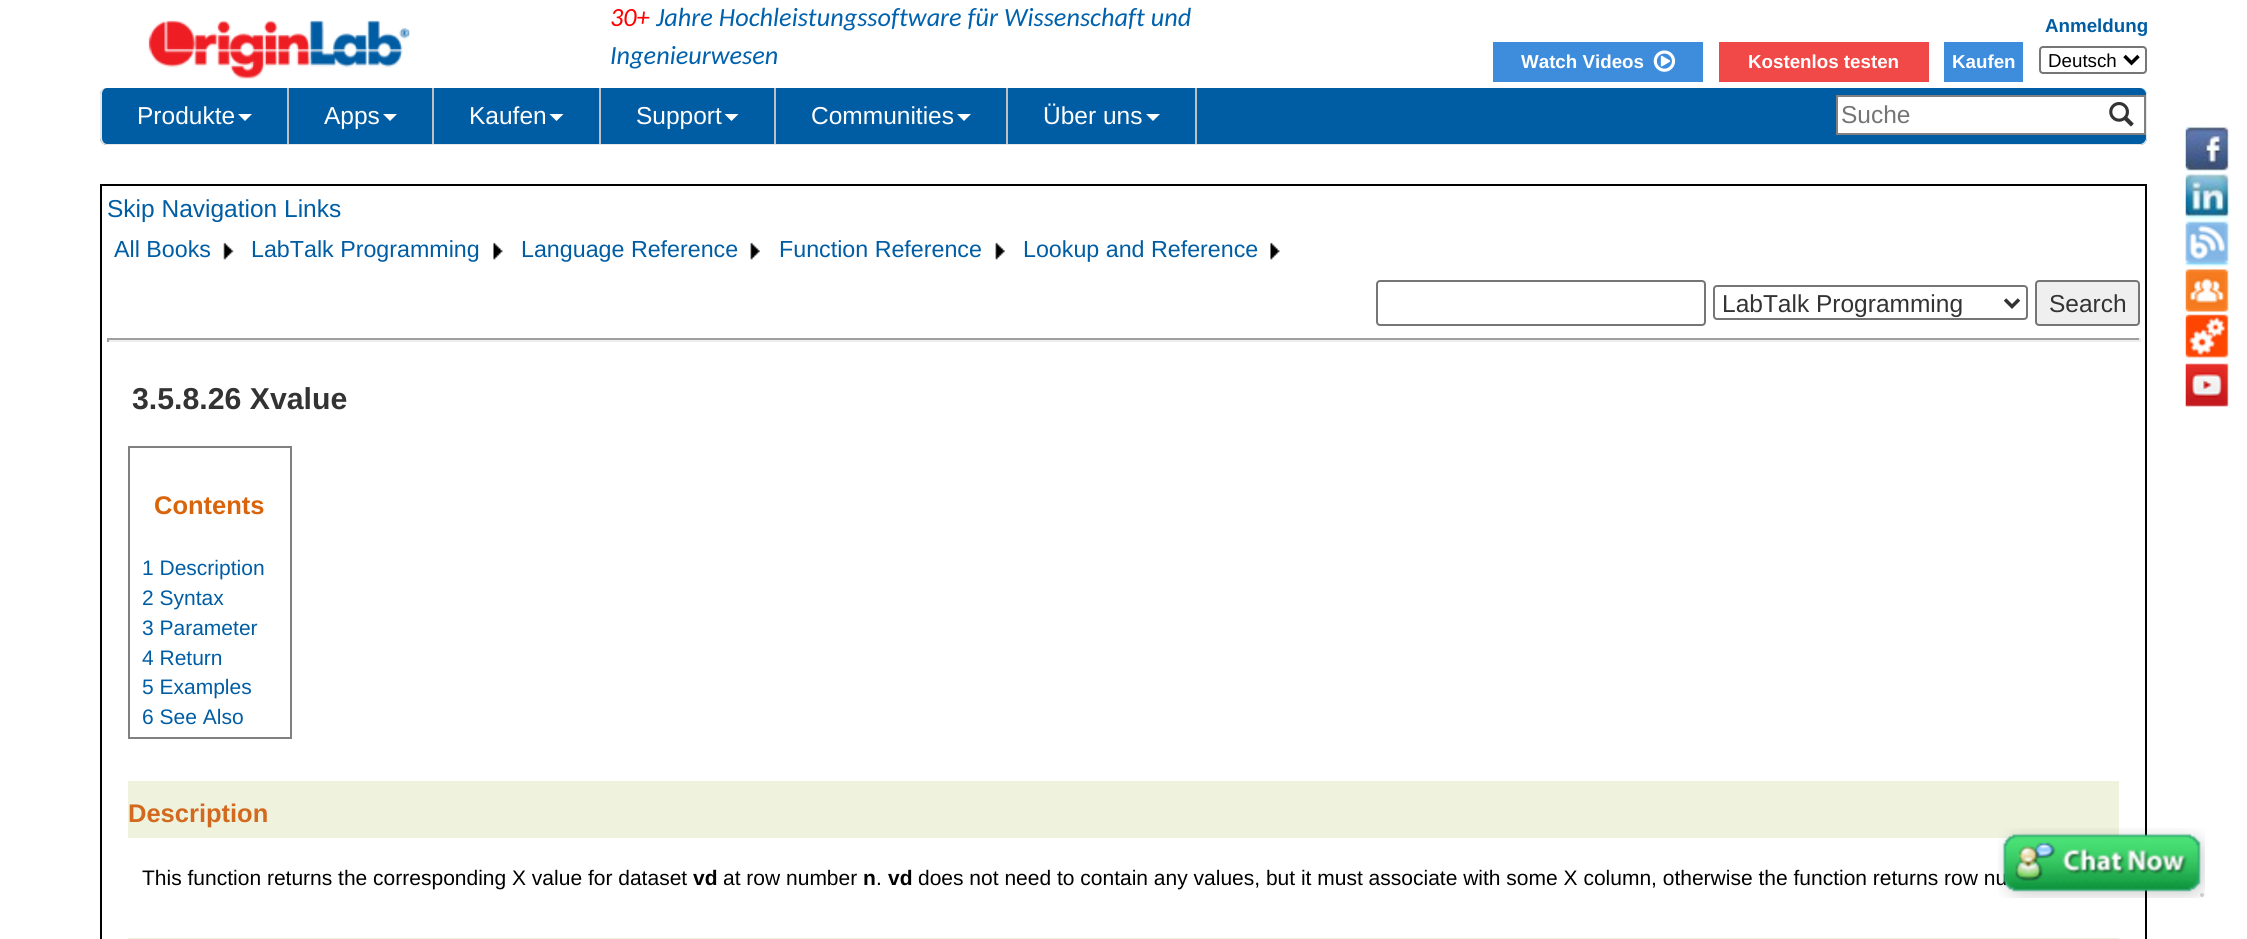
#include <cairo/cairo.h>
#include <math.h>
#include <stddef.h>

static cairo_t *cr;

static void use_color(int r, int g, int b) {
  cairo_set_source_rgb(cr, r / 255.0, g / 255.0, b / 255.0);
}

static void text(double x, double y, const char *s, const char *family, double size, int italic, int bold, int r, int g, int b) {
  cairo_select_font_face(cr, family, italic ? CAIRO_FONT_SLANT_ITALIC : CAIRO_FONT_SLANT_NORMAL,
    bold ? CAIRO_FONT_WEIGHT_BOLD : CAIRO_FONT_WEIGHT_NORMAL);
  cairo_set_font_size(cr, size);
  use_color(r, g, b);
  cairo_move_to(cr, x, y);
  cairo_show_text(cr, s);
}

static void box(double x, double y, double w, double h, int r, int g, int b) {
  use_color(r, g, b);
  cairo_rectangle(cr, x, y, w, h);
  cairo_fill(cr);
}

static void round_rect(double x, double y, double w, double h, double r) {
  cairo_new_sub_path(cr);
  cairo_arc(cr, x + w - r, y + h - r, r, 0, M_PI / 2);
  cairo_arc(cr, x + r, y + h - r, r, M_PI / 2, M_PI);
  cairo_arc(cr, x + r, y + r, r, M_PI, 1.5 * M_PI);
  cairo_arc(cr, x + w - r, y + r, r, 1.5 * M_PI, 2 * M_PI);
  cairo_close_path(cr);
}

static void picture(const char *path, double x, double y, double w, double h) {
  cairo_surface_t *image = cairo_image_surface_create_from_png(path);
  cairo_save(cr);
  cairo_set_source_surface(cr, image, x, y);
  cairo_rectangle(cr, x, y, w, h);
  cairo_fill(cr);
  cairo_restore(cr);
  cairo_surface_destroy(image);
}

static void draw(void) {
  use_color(255, 255, 255);
  cairo_paint(cr);
  picture("img_01.png", 148, 20, 262, 59);
  box(1493, 42, 210, 40, 62, 141, 221);
  picture("img_02.png", 1653, 50, 23, 22);
  box(1719, 42, 210, 40, 241, 73, 71);
  box(1944, 42, 79, 40, 62, 141, 221);
  round_rect(2040, 47, 106, 26, 3);
  use_color(118, 118, 118);
  cairo_stroke(cr);
  cairo_new_path(cr);
  cairo_move_to(cr, 2124.5, 56);
  cairo_line_to(cr, 2131.5, 63);
  cairo_line_to(cr, 2138.5, 56);
  use_color(0, 0, 0);
  cairo_set_line_width(cr, 3.5);
  cairo_stroke(cr);
  use_color(0, 93, 164);
  round_rect(100, 88, 2047, 57, 7);
  cairo_fill(cr);
  use_color(231, 231, 231);
  cairo_set_fill_rule(cr, CAIRO_FILL_RULE_EVEN_ODD);
  cairo_new_path(cr);
  cairo_move_to(cr, 107, 88);
  cairo_line_to(cr, 2140, 88);
  cairo_curve_to(cr, 2144, 88, 2147, 91, 2147, 94);
  cairo_line_to(cr, 2147, 138);
  cairo_curve_to(cr, 2147, 142, 2144, 145, 2140, 145);
  cairo_line_to(cr, 107, 145);
  cairo_curve_to(cr, 103, 145, 100, 142, 100, 138);
  cairo_line_to(cr, 100, 94);
  cairo_curve_to(cr, 100, 91, 103, 88, 107, 88);
  cairo_close_path(cr);
  cairo_move_to(cr, 107, 88);
  cairo_line_to(cr, 2140, 88);
  cairo_curve_to(cr, 2143, 88, 2146, 91, 2146, 94);
  cairo_line_to(cr, 2146, 138);
  cairo_curve_to(cr, 2146, 141, 2143, 144, 2140, 144);
  cairo_line_to(cr, 107, 144);
  cairo_curve_to(cr, 104, 144, 102, 141, 102, 138);
  cairo_line_to(cr, 102, 94);
  cairo_curve_to(cr, 102, 91, 104, 88, 107, 88);
  cairo_close_path(cr);
  cairo_fill(cr);
  box(287, 88, 2, 56, 191, 191, 191);
  use_color(255, 255, 255);
  cairo_set_fill_rule(cr, CAIRO_FILL_RULE_WINDING);
  cairo_new_path(cr);
  cairo_move_to(cr, 238, 114);
  cairo_line_to(cr, 252, 114);
  cairo_line_to(cr, 245, 121);
  cairo_close_path(cr);
  cairo_fill(cr);
  box(432, 88, 2, 56, 191, 191, 191);
  use_color(255, 255, 255);
  cairo_new_path(cr);
  cairo_move_to(cr, 383, 114);
  cairo_line_to(cr, 397, 114);
  cairo_line_to(cr, 390, 121);
  cairo_close_path(cr);
  cairo_fill(cr);
  box(599, 88, 2, 56, 191, 191, 191);
  use_color(255, 255, 255);
  cairo_new_path(cr);
  cairo_move_to(cr, 549.5, 114);
  cairo_line_to(cr, 563.5, 114);
  cairo_line_to(cr, 556.5, 121);
  cairo_close_path(cr);
  cairo_fill(cr);
  box(774, 88, 2, 56, 191, 191, 191);
  use_color(255, 255, 255);
  cairo_new_path(cr);
  cairo_move_to(cr, 724.5, 114);
  cairo_line_to(cr, 738.5, 114);
  cairo_line_to(cr, 731.5, 121);
  cairo_close_path(cr);
  cairo_fill(cr);
  box(1006, 88, 2, 56, 191, 191, 191);
  use_color(255, 255, 255);
  cairo_new_path(cr);
  cairo_move_to(cr, 957, 114);
  cairo_line_to(cr, 971, 114);
  cairo_line_to(cr, 964, 121);
  cairo_close_path(cr);
  cairo_fill(cr);
  box(1195, 88, 2, 56, 191, 191, 191);
  use_color(255, 255, 255);
  cairo_new_path(cr);
  cairo_move_to(cr, 1146, 114);
  cairo_line_to(cr, 1160, 114);
  cairo_line_to(cr, 1153, 121);
  cairo_close_path(cr);
  cairo_fill(cr);
  box(1838, 97, 306, 36, 255, 255, 255);
  box(1836, 95, 310, 2, 128, 128, 128);
  box(1836, 133, 262, 2, 128, 128, 128);
  box(1836, 95, 2, 40, 128, 128, 128);
  box(2144, 95, 2, 40, 128, 128, 128);
  box(2098, 133, 48, 2, 128, 128, 128);
  picture("img_03.png", 2109, 102, 25, 25);
  picture("img_04.png", 2185, 126, 45, 46);
  picture("img_05.png", 2185, 173, 45, 47);
  picture("img_06.png", 2185, 220, 45, 47);
  picture("img_07.png", 2185, 268, 45, 45);
  picture("img_08.png", 2185, 314, 45, 47);
  picture("img_09.png", 2185, 362, 45, 46);
  cairo_rectangle(cr, 101, 185, 2045, 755);
  use_color(0, 0, 0);
  cairo_set_line_width(cr, 2);
  cairo_stroke(cr);
  picture("img_10.png", 223, 242, 11, 18);
  picture("img_11.png", 493, 242, 10, 18);
  picture("img_12.png", 750, 242, 10, 18);
  picture("img_12.png", 995, 242, 10, 18);
  picture("img_11.png", 1270, 242, 10, 18);
  round_rect(1377, 281, 328, 44, 3);
  use_color(118, 118, 118);
  cairo_stroke(cr);
  round_rect(1714, 286, 313, 33, 3);
  cairo_stroke(cr);
  cairo_new_path(cr);
  cairo_move_to(cr, 2005, 299.5);
  cairo_line_to(cr, 2012, 306.5);
  cairo_line_to(cr, 2019, 299.5);
  use_color(51, 51, 51);
  cairo_set_line_width(cr, 3.5);
  cairo_stroke(cr);
  use_color(239, 239, 239);
  round_rect(2036, 281, 103, 44, 3);
  cairo_fill_preserve(cr);
  use_color(118, 118, 118);
  cairo_set_line_width(cr, 2);
  cairo_stroke(cr);
  box(107, 338, 2033, 2, 159, 159, 159);
  box(2139, 338, 2, 4, 238, 238, 238);
  box(107, 340, 2033, 2, 238, 238, 238);
  box(107, 338, 2, 4, 159, 159, 159);
  cairo_rectangle(cr, 129, 447, 162, 291);
  use_color(128, 128, 128);
  cairo_stroke(cr);
  box(128, 781, 1991, 57, 239, 242, 221);
  box(128, 938, 1991, 1, 239, 242, 221);
  text(610, 26, "30+", "Carlito", 26.25, 1, 0, 255, 0, 0);
  text(656, 26, "Jahre Hochleistungssoftware für Wissenschaft und", "Carlito", 26.25, 1, 0, 0, 97, 173);
  text(610, 64, "Ingenieurwesen", "Carlito", 26.25, 1, 0, 0, 97, 173);
  text(2045, 32, "Anmeldung", "Liberation Sans", 18.75, 0, 1, 0, 93, 164);
  text(1521, 68, "Watch Videos", "Liberation Sans", 18.75, 0, 1, 255, 255, 255);
  text(1748, 68, "Kostenlos testen", "Liberation Sans", 18.75, 0, 1, 255, 255, 255);
  text(1952, 68, "Kaufen", "Liberation Sans", 18.75, 0, 1, 255, 255, 255);
  text(2048, 67, "Deutsch", "Liberation Sans", 18.75, 0, 0, 0, 0, 0);
  text(137, 124, "Produkte", "Liberation Sans", 24.5, 0, 0, 255, 255, 255);
  text(324, 124, "Apps", "Liberation Sans", 24.5, 0, 0, 255, 255, 255);
  text(469, 124, "Kaufen", "Liberation Sans", 24.5, 0, 0, 255, 255, 255);
  text(636, 124, "Support", "Liberation Sans", 24.5, 0, 0, 255, 255, 255);
  text(811, 124, "Communities", "Liberation Sans", 24.5, 0, 0, 255, 255, 255);
  text(1043, 124, "Über uns", "Liberation Sans", 24.5, 0, 0, 255, 255, 255);
  text(1841, 123, "Suche", "Liberation Sans", 24.5, 0, 0, 117, 117, 117);
  text(107, 217, "Skip Navigation Links", "Liberation Sans", 24.5, 0, 0, 0, 93, 164);
  text(114, 257, "All Books", "Liberation Sans", 23.25, 0, 0, 0, 93, 164);
  text(251, 257, "LabTalk Programming", "Liberation Sans", 23.25, 0, 0, 0, 93, 164);
  text(521, 257, "Language Reference", "Liberation Sans", 23.25, 0, 0, 0, 93, 164);
  text(779, 257, "Function Reference", "Liberation Sans", 23.25, 0, 0, 0, 93, 164);
  text(1023, 257, "Lookup and Reference", "Liberation Sans", 23.25, 0, 0, 0, 93, 164);
  text(1722, 312, "LabTalk Programming", "Liberation Sans", 24.5, 0, 0, 51, 51, 51);
  text(2049, 312, "Search", "Liberation Sans", 24.5, 0, 0, 51, 51, 51);
  text(132, 409, "3.5.8.26 Xvalue", "Liberation Sans", 30.25, 0, 1, 51, 51, 51);
  text(154, 514, "Contents", "Liberation Sans", 25.5, 0, 1, 218, 100, 10);
  text(142, 575, "1 Description", "Liberation Sans", 21, 0, 0, 0, 93, 164);
  text(142, 605, "2 Syntax", "Liberation Sans", 21, 0, 0, 0, 93, 164);
  text(142, 635, "3 Parameter", "Liberation Sans", 21, 0, 0, 0, 93, 164);
  text(142, 665, "4 Return", "Liberation Sans", 21, 0, 0, 0, 93, 164);
  text(142, 694, "5 Examples", "Liberation Sans", 21, 0, 0, 0, 93, 164);
  text(142, 724, "6 See Also", "Liberation Sans", 21, 0, 0, 0, 93, 164);
  text(128, 822, "Description", "Liberation Sans", 25.5, 0, 1, 210, 105, 30);
  text(142, 885, "This function returns the corresponding X value for dataset", "Liberation Sans", 21, 0, 0, 0, 0, 0);
  text(693, 885, "vd", "Liberation Sans", 21, 0, 1, 0, 0, 0);
  text(723, 885, "at row number", "Liberation Sans", 21, 0, 0, 0, 0, 0);
  text(863, 885, "n", "Liberation Sans", 21, 0, 1, 0, 0, 0);
  text(876, 885, ".", "Liberation Sans", 21, 0, 0, 0, 0, 0);
  text(888, 885, "vd", "Liberation Sans", 21, 0, 1, 0, 0, 0);
  text(918, 885, "does not need to contain any values, but it must associate with some X column, otherwise the function returns row nu", "Liberation Sans", 21, 0, 0, 0, 0, 0);
  picture("img_13.png", 1998, 828, 207, 70);
  use_color(204, 204, 204);
  cairo_arc(cr, 2202, 895, 2, 0, 2 * M_PI);
  cairo_fill(cr);
}

int main(void) {
  cairo_surface_t *surface = cairo_image_surface_create(CAIRO_FORMAT_RGB24, 2247, 939);
  cr = cairo_create(surface);
  cairo_font_options_t *options = cairo_font_options_create();
  cairo_font_options_set_hint_metrics(options, CAIRO_HINT_METRICS_OFF);
  cairo_font_options_set_hint_style(options, CAIRO_HINT_STYLE_NONE);
  cairo_set_font_options(cr, options);
  cairo_set_miter_limit(cr, 4);
  draw();
  cairo_surface_write_to_png(surface, "out.png");
  cairo_font_options_destroy(options);
  cairo_destroy(cr);
  cairo_surface_destroy(surface);
  return 0;
}
